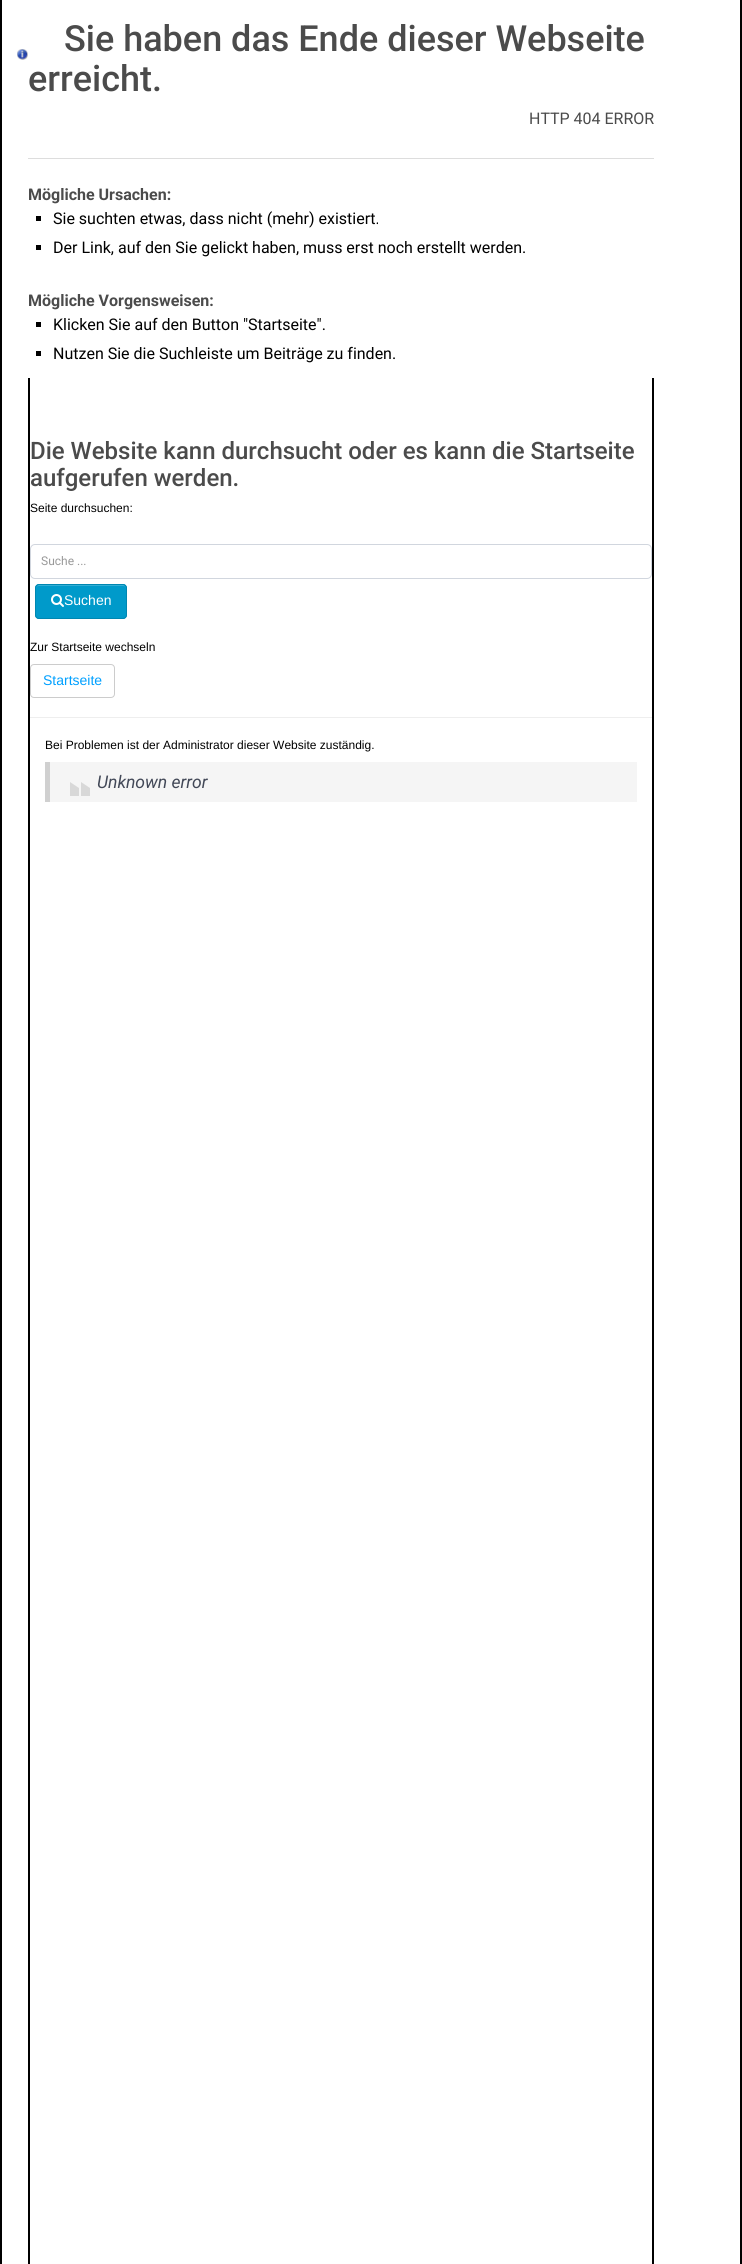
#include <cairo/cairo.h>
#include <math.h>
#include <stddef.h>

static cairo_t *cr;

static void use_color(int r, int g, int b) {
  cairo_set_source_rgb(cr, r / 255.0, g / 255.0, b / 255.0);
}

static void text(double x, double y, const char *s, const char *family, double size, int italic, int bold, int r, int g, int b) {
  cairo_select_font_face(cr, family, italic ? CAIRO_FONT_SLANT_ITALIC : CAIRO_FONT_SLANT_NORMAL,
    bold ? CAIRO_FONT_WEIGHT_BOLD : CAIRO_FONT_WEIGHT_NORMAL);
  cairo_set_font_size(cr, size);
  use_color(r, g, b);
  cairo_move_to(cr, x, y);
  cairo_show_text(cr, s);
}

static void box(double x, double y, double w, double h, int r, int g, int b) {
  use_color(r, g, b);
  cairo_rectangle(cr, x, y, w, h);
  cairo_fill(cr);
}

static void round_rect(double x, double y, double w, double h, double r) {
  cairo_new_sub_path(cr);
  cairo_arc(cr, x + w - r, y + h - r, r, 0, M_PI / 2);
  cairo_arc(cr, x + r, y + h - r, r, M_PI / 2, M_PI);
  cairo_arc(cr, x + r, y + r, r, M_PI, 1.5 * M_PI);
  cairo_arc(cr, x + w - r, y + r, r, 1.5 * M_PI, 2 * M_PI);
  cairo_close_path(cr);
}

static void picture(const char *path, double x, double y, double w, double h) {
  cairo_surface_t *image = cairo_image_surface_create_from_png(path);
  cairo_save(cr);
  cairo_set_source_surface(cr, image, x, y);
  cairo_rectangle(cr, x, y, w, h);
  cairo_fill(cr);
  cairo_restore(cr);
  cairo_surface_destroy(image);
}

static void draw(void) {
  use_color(255, 255, 255);
  cairo_paint(cr);
  box(740, 0, 2, 2264, 0, 0, 0);
  box(0, 0, 2, 2264, 0, 0, 0);
  picture("img_01.png", 17, 49, 11, 11);
  box(28, 158, 626, 1, 221, 221, 221);
  box(36, 216, 5, 5, 0, 0, 0);
  box(36, 245, 5, 5, 0, 0, 0);
  box(36, 322, 5, 5, 0, 0, 0);
  box(36, 351, 5, 5, 0, 0, 0);
  box(652, 378, 2, 1886, 0, 0, 0);
  box(28, 378, 2, 1886, 0, 0, 0);
  box(30, 717, 622, 1, 238, 238, 238);
  round_rect(30.5, 544.5, 621, 34, 4.5);
  use_color(209, 214, 222);
  cairo_set_line_width(cr, 1);
  cairo_stroke(cr);
  use_color(0, 154, 202);
  round_rect(35, 584, 92, 35, 4);
  cairo_fill(cr);
  use_color(51, 174, 213);
  cairo_new_path(cr);
  cairo_move_to(cr, 39, 586);
  cairo_line_to(cr, 123, 586);
  cairo_curve_to(cr, 125, 586, 126, 587, 126, 589);
  cairo_curve_to(cr, 126, 581, 113, 585, 109, 585);
  cairo_line_to(cr, 53, 585);
  cairo_curve_to(cr, 49, 585, 36, 581, 36, 589);
  cairo_curve_to(cr, 36, 587, 37, 586, 39, 586);
  cairo_close_path(cr);
  cairo_fill(cr);
  round_rect(35.5, 584.5, 91, 34, 3.5);
  use_color(0, 135, 177);
  cairo_stroke(cr);
  picture("img_02.png", 51, 594, 13, 13);
  round_rect(30.5, 664.5, 84, 33, 3.5);
  use_color(204, 204, 204);
  cairo_stroke(cr);
  box(50, 762, 587, 40, 245, 245, 245);
  picture("img_03.png", 70, 782, 20, 14);
  box(45, 762, 5, 40, 208, 208, 208);
  text(64, 51, "Sie haben das Ende dieser Webseite", "Roboto Medium", 36, 0, 0, 75, 75, 75);
  text(28, 91, "erreicht.", "Roboto Medium", 36, 0, 0, 75, 75, 75);
  text(529, 124, "HTTP 404 ERROR", "Roboto", 16, 0, 0, 75, 75, 75);
  text(28, 200, "Mögliche Ursachen:", "Roboto", 16, 0, 1, 75, 75, 75);
  text(53, 224, "Sie suchten etwas, dass nicht (mehr) existiert.", "Roboto", 16, 0, 0, 0, 0, 0);
  text(53, 253, "Der Link, auf den Sie gelickt haben, muss erst noch erstellt werden.", "Roboto", 16, 0, 0, 0, 0, 0);
  text(28, 306, "Mögliche Vorgensweisen:", "Roboto", 16, 0, 1, 75, 75, 75);
  text(53, 330, "Klicken Sie auf den Button \"Startseite\".", "Roboto", 16, 0, 0, 0, 0, 0);
  text(53, 359, "Nutzen Sie die Suchleiste um Beiträge zu finden.", "Roboto", 16, 0, 0, 0, 0, 0);
  text(30, 459, "Die Website kann durchsucht oder es kann die Startseite", "Roboto Medium", 24, 0, 0, 75, 75, 75);
  text(30, 486, "aufgerufen werden.", "Roboto Medium", 24, 0, 0, 75, 75, 75);
  text(30, 512, "Seite durchsuchen:", "Liberation Sans", 12, 0, 0, 0, 0, 0);
  text(41, 565, "Suche ...", "Roboto", 12, 0, 0, 153, 153, 153);
  text(64, 605, "Suchen", "Liberation Sans", 14, 0, 0, 255, 255, 255);
  text(30, 651, "Zur Startseite wechseln", "Liberation Sans", 12, 0, 0, 0, 0, 0);
  text(43, 685, "Startseite", "Liberation Sans", 14, 0, 0, 0, 160, 255);
  text(45, 749, "Bei Problemen ist der Administrator dieser Website zuständig.", "Liberation Sans", 12, 0, 0, 0, 0, 0);
  text(97, 788, "Unknown error", "Roboto", 17.5, 1, 0, 66, 72, 87);
}

int main(void) {
  cairo_surface_t *surface = cairo_image_surface_create(CAIRO_FORMAT_RGB24, 742, 2264);
  cr = cairo_create(surface);
  cairo_font_options_t *options = cairo_font_options_create();
  cairo_font_options_set_hint_metrics(options, CAIRO_HINT_METRICS_OFF);
  cairo_font_options_set_hint_style(options, CAIRO_HINT_STYLE_NONE);
  cairo_set_font_options(cr, options);
  cairo_set_miter_limit(cr, 4);
  draw();
  cairo_surface_write_to_png(surface, "out.png");
  cairo_font_options_destroy(options);
  cairo_destroy(cr);
  cairo_surface_destroy(surface);
  return 0;
}
